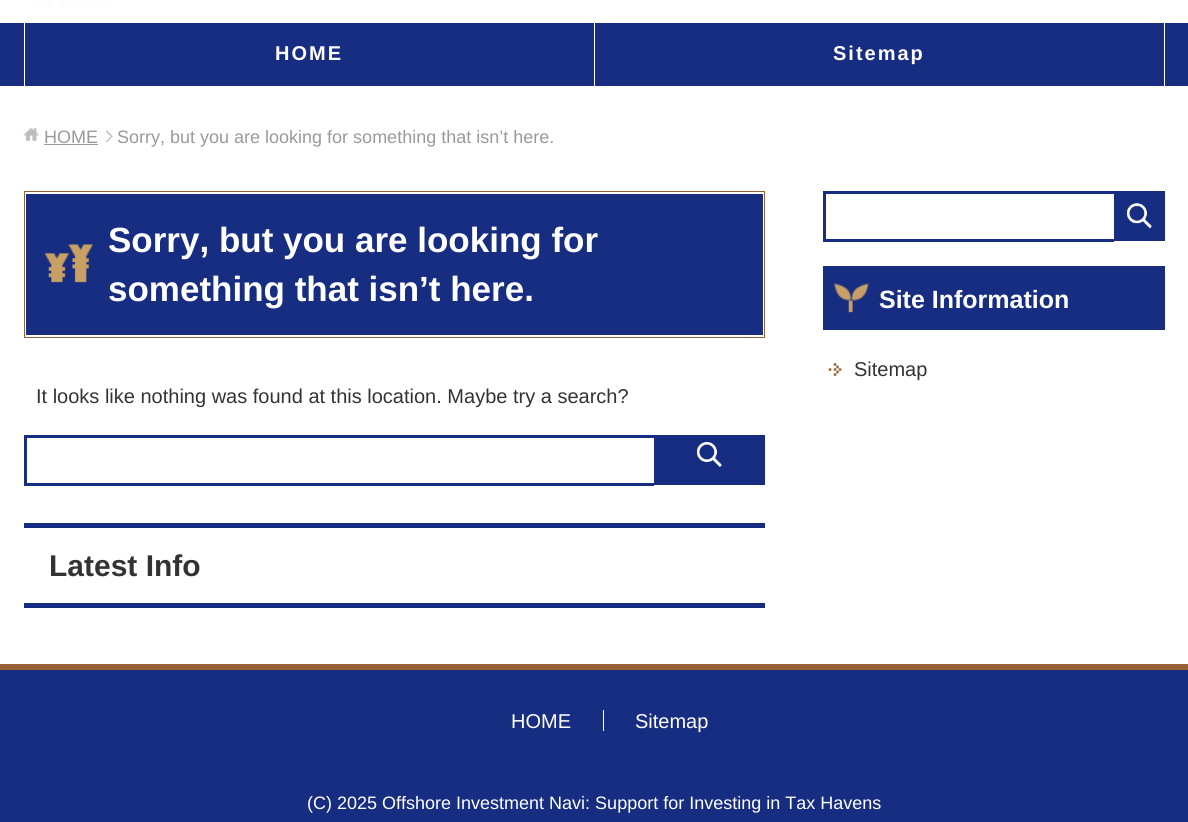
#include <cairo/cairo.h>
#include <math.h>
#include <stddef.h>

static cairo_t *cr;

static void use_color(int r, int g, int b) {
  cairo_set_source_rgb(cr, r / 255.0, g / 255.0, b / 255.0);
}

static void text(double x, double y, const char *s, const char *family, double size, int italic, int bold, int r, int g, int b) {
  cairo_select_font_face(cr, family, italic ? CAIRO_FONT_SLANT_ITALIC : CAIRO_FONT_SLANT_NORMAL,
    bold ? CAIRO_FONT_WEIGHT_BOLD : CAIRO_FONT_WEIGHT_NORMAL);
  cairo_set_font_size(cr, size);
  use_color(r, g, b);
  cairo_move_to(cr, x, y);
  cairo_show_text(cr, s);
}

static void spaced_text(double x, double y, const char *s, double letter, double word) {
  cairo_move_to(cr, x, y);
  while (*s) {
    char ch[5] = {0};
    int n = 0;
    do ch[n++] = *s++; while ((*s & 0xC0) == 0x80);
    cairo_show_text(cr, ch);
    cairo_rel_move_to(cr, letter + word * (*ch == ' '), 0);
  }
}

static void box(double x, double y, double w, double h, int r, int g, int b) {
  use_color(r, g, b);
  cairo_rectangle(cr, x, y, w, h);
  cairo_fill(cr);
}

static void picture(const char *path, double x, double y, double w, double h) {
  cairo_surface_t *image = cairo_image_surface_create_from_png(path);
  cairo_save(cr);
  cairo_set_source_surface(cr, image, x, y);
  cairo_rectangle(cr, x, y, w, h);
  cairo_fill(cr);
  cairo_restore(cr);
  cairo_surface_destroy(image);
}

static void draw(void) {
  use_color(255, 255, 255);
  cairo_paint(cr);
  picture("img_01.png", 33, 0, 80, 7);
  box(0, 23, 1188, 63, 23, 45, 129);
  box(24, 23, 1, 63, 255, 255, 255);
  box(594, 23, 1, 63, 255, 255, 255);
  box(1164, 23, 1, 63, 255, 255, 255);
  picture("img_02.png", 106, 130, 7, 12);
  picture("img_03.png", 23, 128, 16, 14);
  box(44, 144, 54, 1, 153, 153, 153);
  cairo_rectangle(cr, 24.5, 191.5, 740, 146);
  use_color(149, 97, 52);
  cairo_set_line_width(cr, 1);
  cairo_stroke(cr);
  box(26, 194, 737, 141, 23, 45, 129);
  picture("img_04.png", 44, 244, 49, 39);
  box(24, 435, 630, 3, 23, 45, 129);
  box(24, 483, 630, 3, 23, 45, 129);
  box(24, 435, 3, 50, 23, 45, 129);
  box(654, 435, 111, 50, 23, 45, 129);
  picture("img_05.png", 697, 442, 25, 25);
  box(24, 523, 741, 5, 23, 45, 129);
  box(24, 603, 741, 5, 23, 45, 129);
  box(823, 191, 291, 3, 23, 45, 129);
  box(823, 239, 291, 3, 23, 45, 129);
  box(823, 191, 3, 50, 23, 45, 129);
  box(1114, 191, 51, 50, 23, 45, 129);
  picture("img_06.png", 1127, 203, 25, 26);
  box(823, 266, 342, 64, 23, 45, 129);
  picture("img_07.png", 833, 283, 36, 30);
  picture("img_08.png", 828, 363, 14, 13);
  box(0, 670, 1188, 152, 23, 45, 129);
  box(0, 664, 1188, 6, 149, 97, 52);
  box(603, 710, 1, 21, 255, 255, 255);
  cairo_select_font_face(cr, "Liberation Sans", CAIRO_FONT_SLANT_NORMAL, CAIRO_FONT_WEIGHT_BOLD);
  cairo_set_font_size(cr, 20);
  spaced_text(275, 60, "HOME", 2, 0);
  spaced_text(833, 60, "Sitemap", 2, 0);
  text(44, 143, "HOME", "Liberation Sans", 18, 0, 0, 153, 153, 153);
  text(117, 143, "Sorry, but you are looking for something that isn’t here.", "Liberation Sans", 18, 0, 0, 153, 153, 153);
  text(108, 252, "Sorry, but you are looking for", "Liberation Sans", 35, 0, 1, 255, 255, 255);
  text(108, 301, "something that isn’t here.", "Liberation Sans", 35, 0, 1, 255, 255, 255);
  text(36, 403, "It looks like nothing was found at this location. Maybe try a search?", "Liberation Sans", 20, 0, 0, 51, 51, 51);
  text(49, 576, "Latest Info", "Liberation Sans", 30, 0, 1, 51, 51, 51);
  text(879, 308, "Site Information", "Liberation Sans", 25, 0, 1, 255, 255, 255);
  text(854, 376, "Sitemap", "Liberation Sans", 20, 0, 0, 51, 51, 51);
  text(511, 728, "HOME", "Liberation Sans", 20, 0, 0, 255, 255, 255);
  text(635, 728, "Sitemap", "Liberation Sans", 20, 0, 0, 255, 255, 255);
  text(307, 809, "(C) 2025 Offshore Investment Navi: Support for Investing in Tax Havens", "Liberation Sans", 18, 0, 0, 255, 255, 255);
}

int main(void) {
  cairo_surface_t *surface = cairo_image_surface_create(CAIRO_FORMAT_RGB24, 1188, 822);
  cr = cairo_create(surface);
  cairo_font_options_t *options = cairo_font_options_create();
  cairo_font_options_set_hint_metrics(options, CAIRO_HINT_METRICS_OFF);
  cairo_font_options_set_hint_style(options, CAIRO_HINT_STYLE_NONE);
  cairo_set_font_options(cr, options);
  cairo_set_miter_limit(cr, 4);
  draw();
  cairo_surface_write_to_png(surface, "out.png");
  cairo_font_options_destroy(options);
  cairo_destroy(cr);
  cairo_surface_destroy(surface);
  return 0;
}
